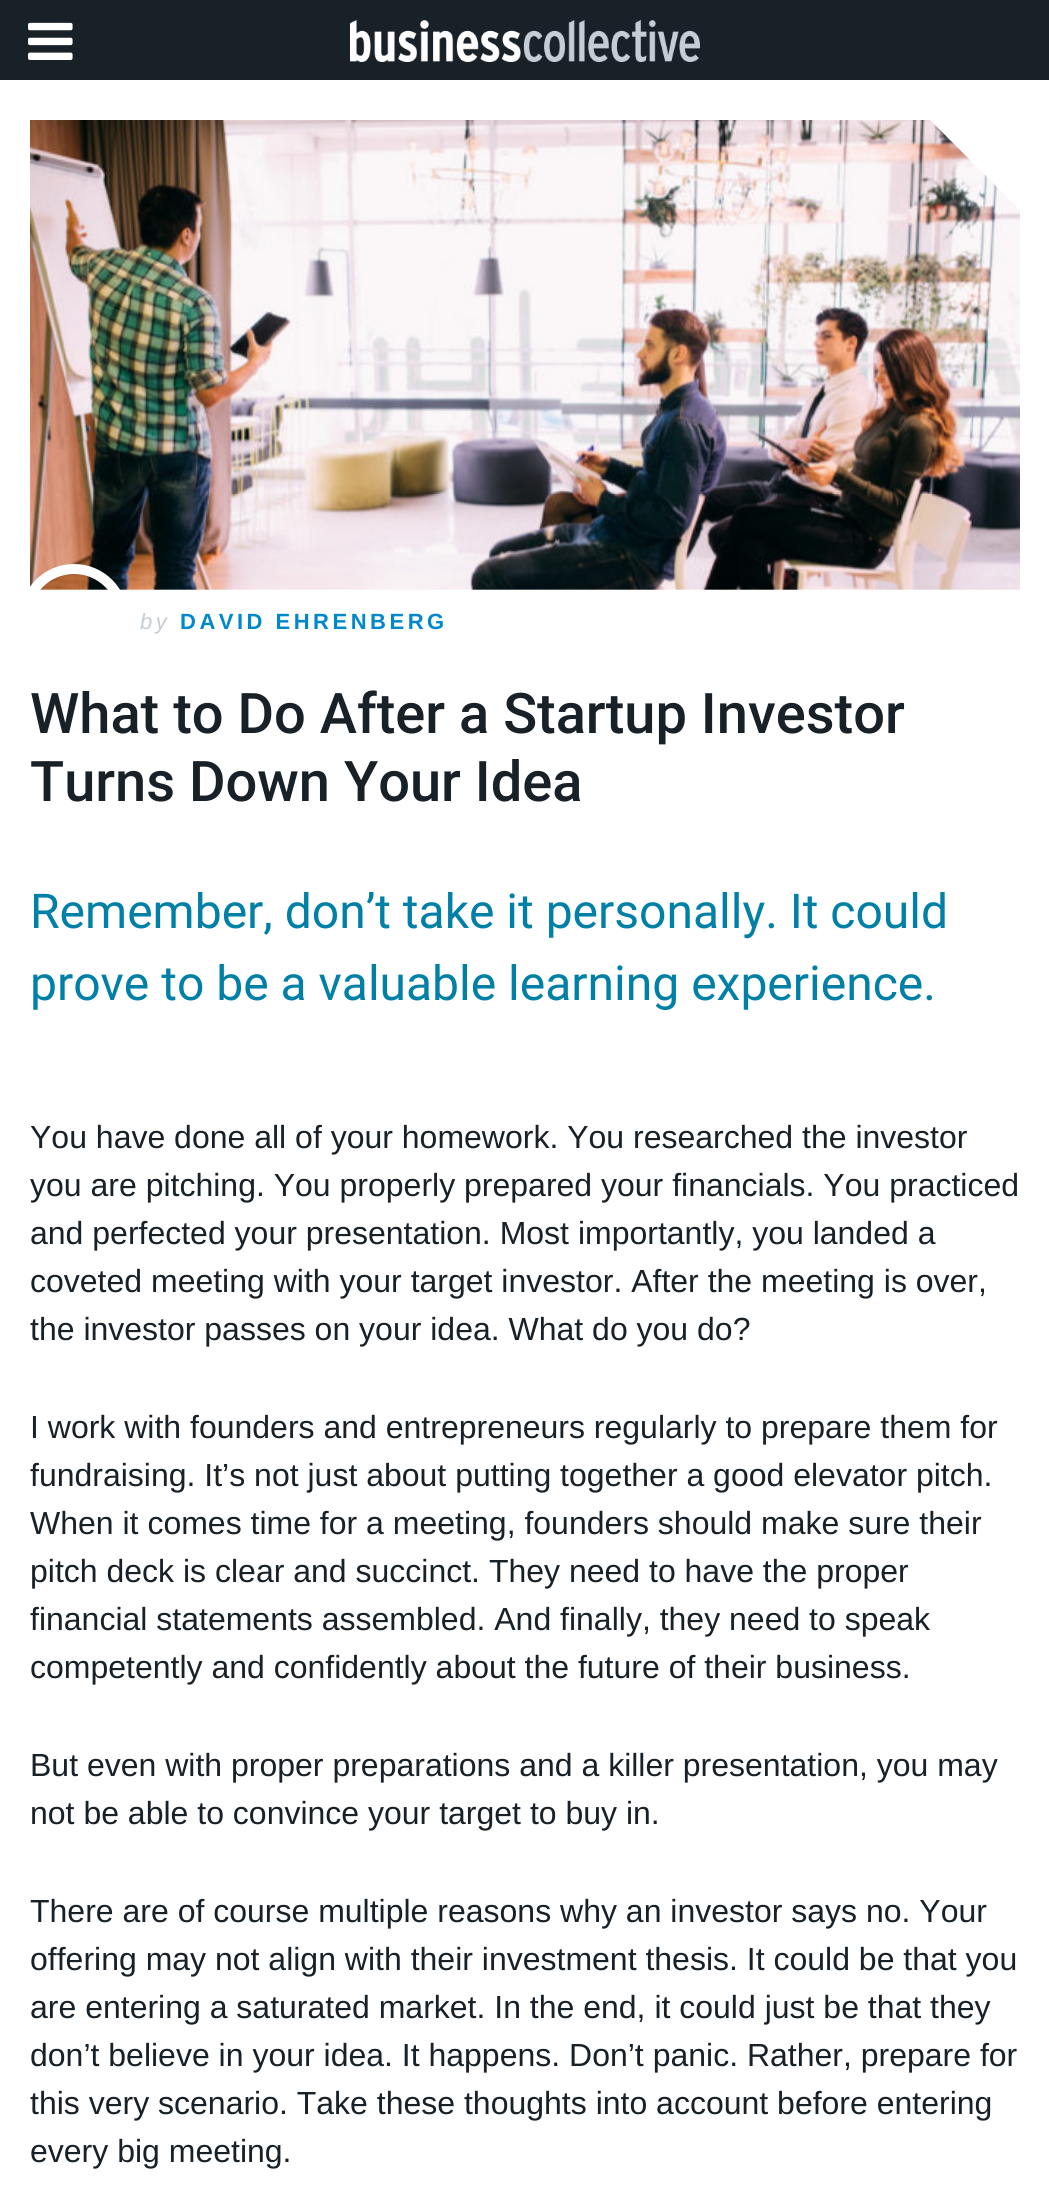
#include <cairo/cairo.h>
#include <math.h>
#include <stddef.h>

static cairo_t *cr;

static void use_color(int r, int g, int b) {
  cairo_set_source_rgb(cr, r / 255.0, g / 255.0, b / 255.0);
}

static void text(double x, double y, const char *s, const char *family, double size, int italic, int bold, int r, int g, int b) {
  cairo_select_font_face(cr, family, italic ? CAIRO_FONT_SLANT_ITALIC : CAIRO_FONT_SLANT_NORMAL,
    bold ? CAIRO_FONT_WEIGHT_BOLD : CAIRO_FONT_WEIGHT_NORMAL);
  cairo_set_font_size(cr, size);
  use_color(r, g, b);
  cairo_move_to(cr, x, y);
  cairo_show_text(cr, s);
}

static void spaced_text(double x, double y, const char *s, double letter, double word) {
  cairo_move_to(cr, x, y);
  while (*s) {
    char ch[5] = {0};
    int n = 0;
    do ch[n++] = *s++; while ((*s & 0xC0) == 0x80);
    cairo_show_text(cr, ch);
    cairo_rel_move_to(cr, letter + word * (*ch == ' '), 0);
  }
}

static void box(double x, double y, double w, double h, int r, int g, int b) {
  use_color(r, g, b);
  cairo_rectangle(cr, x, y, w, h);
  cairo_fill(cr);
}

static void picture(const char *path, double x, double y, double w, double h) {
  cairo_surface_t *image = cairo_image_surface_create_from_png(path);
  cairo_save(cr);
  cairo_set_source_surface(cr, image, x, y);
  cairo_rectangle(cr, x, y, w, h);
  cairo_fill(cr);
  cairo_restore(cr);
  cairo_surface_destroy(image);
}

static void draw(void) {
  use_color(255, 255, 255);
  cairo_paint(cr);
  box(0, 0, 1049, 80, 24, 32, 40);
  picture("img_01.png", 28, 22, 45, 38);
  picture("img_02.png", 350, 20, 350, 42);
  picture("img_03.png", 30, 120, 990, 470);
  use_color(255, 255, 255);
  cairo_new_path(cr);
  cairo_move_to(cr, 930, 120);
  cairo_line_to(cr, 1020, 120);
  cairo_line_to(cr, 1020, 210);
  cairo_close_path(cr);
  cairo_fill(cr);
  cairo_arc(cr, 74, 618, 49, 0, 2 * M_PI);
  cairo_set_line_width(cr, 10);
  cairo_stroke(cr);
  cairo_select_font_face(cr, "Liberation Sans", CAIRO_FONT_SLANT_ITALIC, CAIRO_FONT_WEIGHT_NORMAL);
  cairo_set_font_size(cr, 22);
  use_color(196, 205, 214);
  spaced_text(140, 629, "by", 3.5, 0);
  cairo_select_font_face(cr, "Liberation Sans", CAIRO_FONT_SLANT_NORMAL, CAIRO_FONT_WEIGHT_BOLD);
  use_color(0, 136, 204);
  spaced_text(180, 629, "DAVID EHRENBERG", 3.5, 0);
  text(30, 733, "What to Do After a Startup Investor", "Roboto Medium", 56, 0, 0, 24, 32, 40);
  text(30, 801, "Turns Down Your Idea", "Roboto Medium", 56, 0, 0, 24, 32, 40);
  text(30, 928, "Remember, don’t take it personally. It could", "Roboto", 48, 0, 0, 0, 128, 167);
  text(30, 1000, "prove to be a valuable learning experience.", "Roboto", 48, 0, 0, 0, 128, 167);
  text(30, 1148, "You have done all of your homework. You researched the investor", "Liberation Sans", 32, 0, 0, 24, 32, 40);
  text(30, 1196, "you are pitching. You properly prepared your financials. You practiced", "Liberation Sans", 32, 0, 0, 24, 32, 40);
  text(30, 1244, "and perfected your presentation. Most importantly, you landed a", "Liberation Sans", 32, 0, 0, 24, 32, 40);
  text(30, 1292, "coveted meeting with your target investor. After the meeting is over,", "Liberation Sans", 32, 0, 0, 24, 32, 40);
  text(30, 1340, "the investor passes on your idea. What do you do?", "Liberation Sans", 32, 0, 0, 24, 32, 40);
  text(30, 1438, "I work with founders and entrepreneurs regularly to prepare them for", "Liberation Sans", 32, 0, 0, 24, 32, 40);
  text(30, 1486, "fundraising. It’s not just about putting together a good elevator pitch.", "Liberation Sans", 32, 0, 0, 24, 32, 40);
  text(30, 1534, "When it comes time for a meeting, founders should make sure their", "Liberation Sans", 32, 0, 0, 24, 32, 40);
  text(30, 1582, "pitch deck is clear and succinct. They need to have the proper", "Liberation Sans", 32, 0, 0, 24, 32, 40);
  text(30, 1630, "financial statements assembled. And finally, they need to speak", "Liberation Sans", 32, 0, 0, 24, 32, 40);
  text(30, 1678, "competently and confidently about the future of their business.", "Liberation Sans", 32, 0, 0, 24, 32, 40);
  text(30, 1776, "But even with proper preparations and a killer presentation, you may", "Liberation Sans", 32, 0, 0, 24, 32, 40);
  text(30, 1824, "not be able to convince your target to buy in.", "Liberation Sans", 32, 0, 0, 24, 32, 40);
  text(30, 1922, "There are of course multiple reasons why an investor says no. Your", "Liberation Sans", 32, 0, 0, 24, 32, 40);
  text(30, 1970, "offering may not align with their investment thesis. It could be that you", "Liberation Sans", 32, 0, 0, 24, 32, 40);
  text(30, 2018, "are entering a saturated market. In the end, it could just be that they", "Liberation Sans", 32, 0, 0, 24, 32, 40);
  text(30, 2066, "don’t believe in your idea. It happens. Don’t panic. Rather, prepare for", "Liberation Sans", 32, 0, 0, 24, 32, 40);
  text(30, 2114, "this very scenario. Take these thoughts into account before entering", "Liberation Sans", 32, 0, 0, 24, 32, 40);
  text(30, 2162, "every big meeting.", "Liberation Sans", 32, 0, 0, 24, 32, 40);
}

int main(void) {
  cairo_surface_t *surface = cairo_image_surface_create(CAIRO_FORMAT_RGB24, 1049, 2191);
  cr = cairo_create(surface);
  cairo_font_options_t *options = cairo_font_options_create();
  cairo_font_options_set_hint_metrics(options, CAIRO_HINT_METRICS_OFF);
  cairo_font_options_set_hint_style(options, CAIRO_HINT_STYLE_NONE);
  cairo_set_font_options(cr, options);
  cairo_set_miter_limit(cr, 4);
  draw();
  cairo_surface_write_to_png(surface, "out.png");
  cairo_font_options_destroy(options);
  cairo_destroy(cr);
  cairo_surface_destroy(surface);
  return 0;
}
